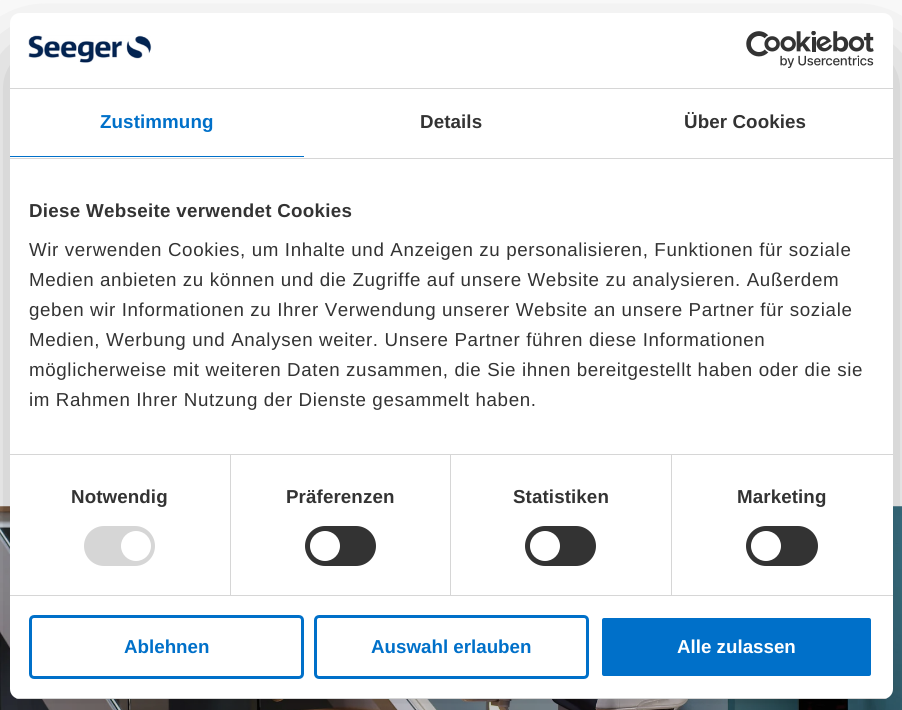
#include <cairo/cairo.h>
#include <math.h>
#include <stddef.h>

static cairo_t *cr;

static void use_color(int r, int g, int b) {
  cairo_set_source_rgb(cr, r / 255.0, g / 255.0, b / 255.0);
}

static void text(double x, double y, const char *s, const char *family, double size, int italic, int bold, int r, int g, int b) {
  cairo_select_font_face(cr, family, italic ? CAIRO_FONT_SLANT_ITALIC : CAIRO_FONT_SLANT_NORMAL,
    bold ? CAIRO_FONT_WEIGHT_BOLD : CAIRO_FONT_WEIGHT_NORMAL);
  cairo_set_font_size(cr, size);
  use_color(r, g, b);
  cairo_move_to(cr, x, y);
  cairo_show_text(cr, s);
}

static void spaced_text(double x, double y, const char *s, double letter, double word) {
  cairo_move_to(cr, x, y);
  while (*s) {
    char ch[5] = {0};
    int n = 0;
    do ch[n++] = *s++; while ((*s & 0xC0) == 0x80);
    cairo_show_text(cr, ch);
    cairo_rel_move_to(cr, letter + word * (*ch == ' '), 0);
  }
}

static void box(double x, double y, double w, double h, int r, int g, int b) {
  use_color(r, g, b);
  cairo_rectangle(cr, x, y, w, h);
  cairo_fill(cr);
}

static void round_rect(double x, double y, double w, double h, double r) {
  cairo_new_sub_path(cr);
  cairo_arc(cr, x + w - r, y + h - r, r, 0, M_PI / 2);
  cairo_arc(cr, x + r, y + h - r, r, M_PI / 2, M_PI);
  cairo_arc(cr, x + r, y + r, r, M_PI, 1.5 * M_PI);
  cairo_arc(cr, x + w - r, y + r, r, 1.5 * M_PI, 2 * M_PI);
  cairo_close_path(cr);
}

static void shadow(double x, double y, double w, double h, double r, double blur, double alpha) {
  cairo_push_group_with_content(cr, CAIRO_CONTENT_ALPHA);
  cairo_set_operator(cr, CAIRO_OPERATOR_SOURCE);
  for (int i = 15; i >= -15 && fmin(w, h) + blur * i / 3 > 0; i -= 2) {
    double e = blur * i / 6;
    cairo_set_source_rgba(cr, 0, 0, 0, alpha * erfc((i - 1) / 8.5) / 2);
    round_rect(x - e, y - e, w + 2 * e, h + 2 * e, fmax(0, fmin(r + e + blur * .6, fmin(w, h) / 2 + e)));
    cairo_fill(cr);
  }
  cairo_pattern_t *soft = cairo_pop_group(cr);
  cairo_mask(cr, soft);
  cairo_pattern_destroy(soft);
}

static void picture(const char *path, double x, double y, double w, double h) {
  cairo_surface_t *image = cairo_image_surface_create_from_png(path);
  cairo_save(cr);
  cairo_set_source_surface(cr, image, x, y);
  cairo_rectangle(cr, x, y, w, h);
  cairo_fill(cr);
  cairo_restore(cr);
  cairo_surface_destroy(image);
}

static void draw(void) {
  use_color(255, 255, 255);
  cairo_paint(cr);
  picture("img_03.png", 0, 506, 902, 204);
  use_color(0, 0, 0);
  shadow(10, 53, 883, 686, 10, 42.5, 0.3);
  use_color(255, 255, 255);
  round_rect(10, 13, 883, 686, 10);
  cairo_fill(cr);
  box(10, 88, 883, 1, 214, 214, 214);
  picture("img_01.png", 28, 35, 124, 28);
  picture("img_02.png", 746, 31, 128, 37);
  box(10, 158, 883, 1, 214, 214, 214);
  box(10, 156, 294, 1, 0, 112, 201);
  box(10, 454, 883, 1, 214, 214, 214);
  box(10, 595, 883, 1, 214, 214, 214);
  box(230, 455, 1, 140, 214, 214, 214);
  round_rect(84, 526, 71, 40, 20);
  cairo_fill(cr);
  use_color(255, 255, 255);
  cairo_arc(cr, 136, 546, 15, 0, 2 * M_PI);
  cairo_fill(cr);
  box(450, 455, 1, 140, 214, 214, 214);
  use_color(51, 51, 51);
  round_rect(305, 526, 71, 40, 20);
  cairo_fill(cr);
  use_color(255, 255, 255);
  cairo_arc(cr, 325, 546, 15, 0, 2 * M_PI);
  cairo_fill(cr);
  box(671, 455, 1, 140, 214, 214, 214);
  use_color(51, 51, 51);
  round_rect(525, 526, 71, 40, 20);
  cairo_fill(cr);
  use_color(255, 255, 255);
  cairo_arc(cr, 545, 546, 15, 0, 2 * M_PI);
  cairo_fill(cr);
  use_color(51, 51, 51);
  round_rect(746, 526, 72, 40, 20);
  cairo_fill(cr);
  use_color(255, 255, 255);
  cairo_arc(cr, 766, 546, 15, 0, 2 * M_PI);
  cairo_fill(cr);
  cairo_save(cr);
  round_rect(10, 13, 883, 686, 10);
  cairo_clip(cr);
  box(10, 698, 883, 1, 214, 214, 214);
  cairo_restore(cr);
  round_rect(30.5, 616.5, 272, 61, 3.5);
  use_color(0, 112, 201);
  cairo_set_line_width(cr, 3);
  cairo_stroke(cr);
  round_rect(315.5, 616.5, 272, 61, 3.5);
  cairo_stroke(cr);
  round_rect(600.5, 616.5, 272, 61, 3.5);
  cairo_fill_preserve(cr);
  use_color(255, 255, 255);
  cairo_stroke(cr);
  cairo_select_font_face(cr, "Liberation Sans", CAIRO_FONT_SLANT_NORMAL, CAIRO_FONT_WEIGHT_BOLD);
  cairo_set_font_size(cr, 18.75);
  use_color(0, 112, 201);
  spaced_text(100, 128, "Zustimmung", 0.1, 0);
  use_color(51, 51, 51);
  spaced_text(420, 128, "Details", 0.1, 0);
  spaced_text(684, 128, "Über Cookies", 0.1, 0);
  spaced_text(29, 217, "Diese Webseite verwendet Cookies", 0.3, 0);
  cairo_select_font_face(cr, "Liberation Sans", CAIRO_FONT_SLANT_NORMAL, CAIRO_FONT_WEIGHT_NORMAL);
  spaced_text(29, 256, "Wir verwenden Cookies, um Inhalte und Anzeigen zu personalisieren, Funktionen für soziale", 0.62, 0);
  spaced_text(29, 286, "Medien anbieten zu können und die Zugriffe auf unsere Website zu analysieren. Außerdem", 0.62, 0);
  spaced_text(29, 316, "geben wir Informationen zu Ihrer Verwendung unserer Website an unsere Partner für soziale", 0.62, 0);
  spaced_text(29, 346, "Medien, Werbung und Analysen weiter. Unsere Partner führen diese Informationen", 0.62, 0);
  spaced_text(29, 376, "möglicherweise mit weiteren Daten zusammen, die Sie ihnen bereitgestellt haben oder die sie", 0.62, 0);
  spaced_text(29, 406, "im Rahmen Ihrer Nutzung der Dienste gesammelt haben.", 0.62, 0);
  cairo_select_font_face(cr, "Liberation Sans", CAIRO_FONT_SLANT_NORMAL, CAIRO_FONT_WEIGHT_BOLD);
  spaced_text(71, 503, "Notwendig", 0.1, 0);
  spaced_text(286, 503, "Präferenzen", 0.1, 0);
  spaced_text(513, 503, "Statistiken", 0.1, 0);
  spaced_text(737, 503, "Marketing", 0.1, 0);
  text(124, 653, "Ablehnen", "Liberation Sans", 18.75, 0, 1, 0, 112, 201);
  text(371, 653, "Auswahl erlauben", "Liberation Sans", 18.75, 0, 1, 0, 112, 201);
  text(677, 653, "Alle zulassen", "Liberation Sans", 18.75, 0, 1, 255, 255, 255);
}

int main(void) {
  cairo_surface_t *surface = cairo_image_surface_create(CAIRO_FORMAT_RGB24, 902, 710);
  cr = cairo_create(surface);
  cairo_font_options_t *options = cairo_font_options_create();
  cairo_font_options_set_hint_metrics(options, CAIRO_HINT_METRICS_OFF);
  cairo_font_options_set_hint_style(options, CAIRO_HINT_STYLE_NONE);
  cairo_set_font_options(cr, options);
  cairo_set_miter_limit(cr, 4);
  draw();
  cairo_surface_write_to_png(surface, "out.png");
  cairo_font_options_destroy(options);
  cairo_destroy(cr);
  cairo_surface_destroy(surface);
  return 0;
}
